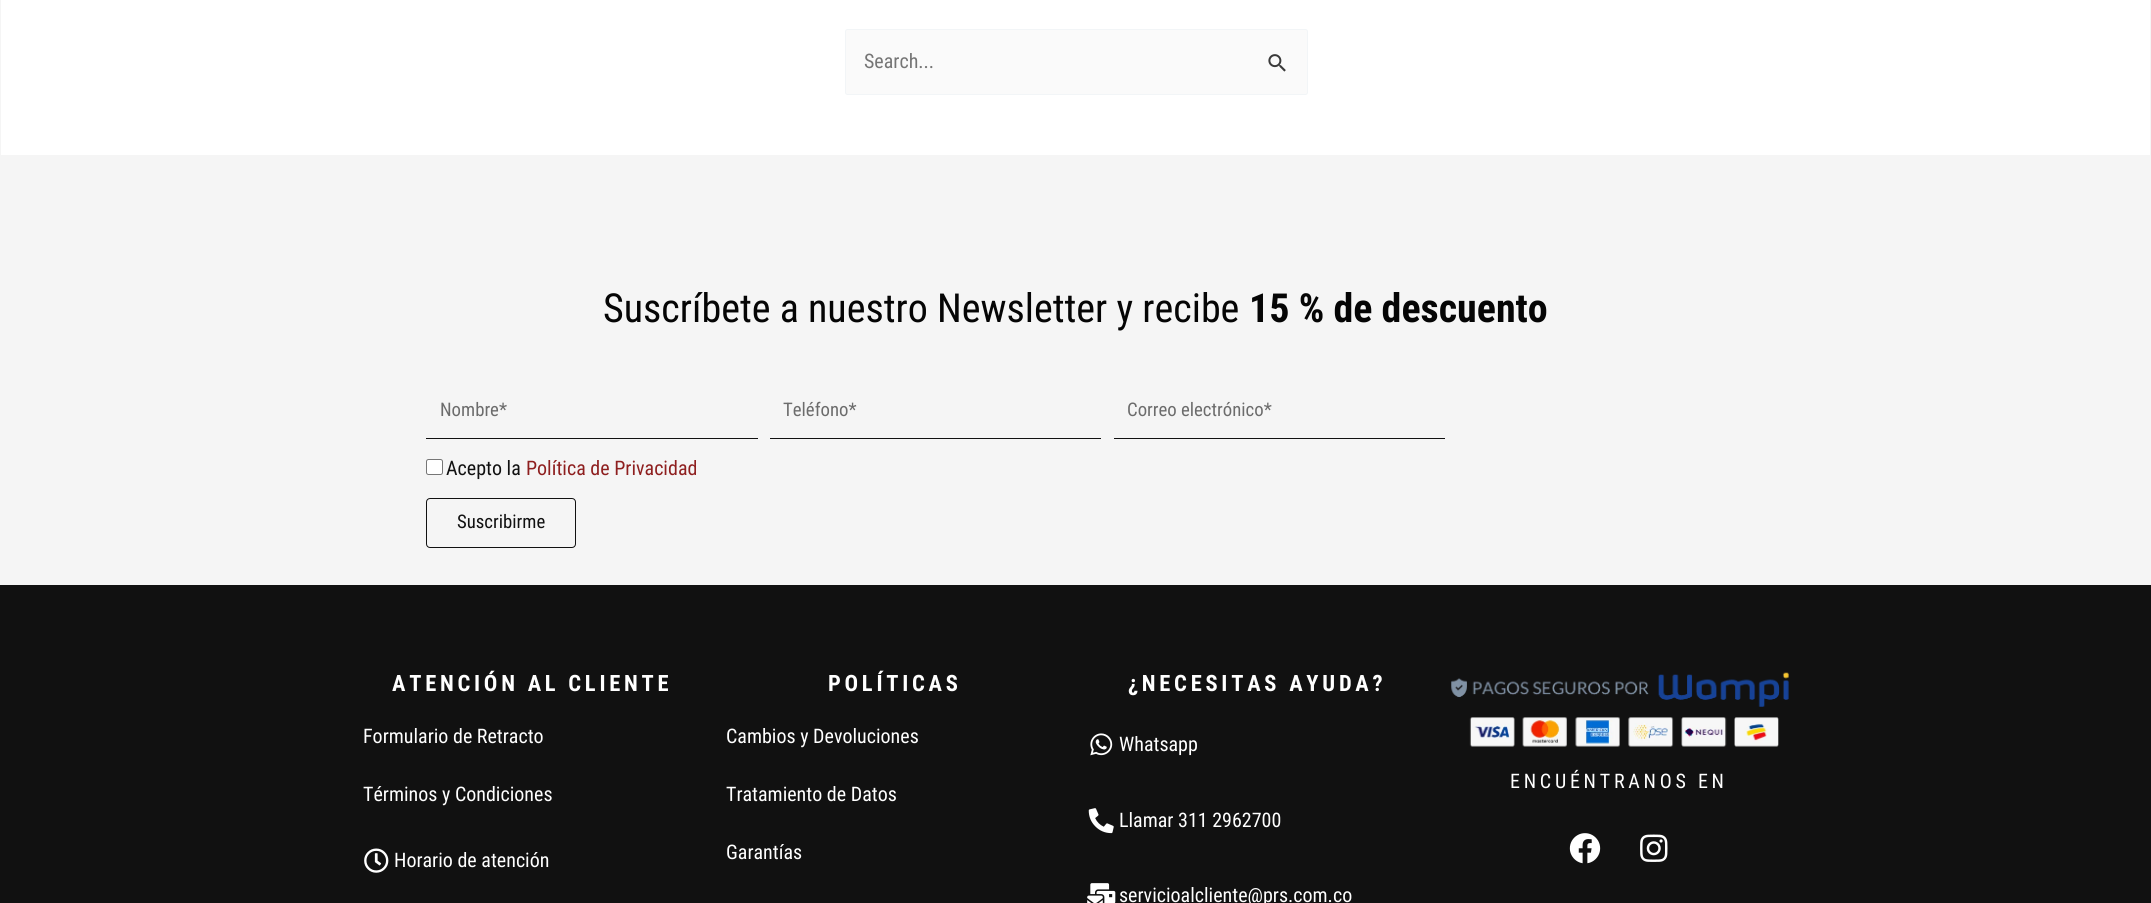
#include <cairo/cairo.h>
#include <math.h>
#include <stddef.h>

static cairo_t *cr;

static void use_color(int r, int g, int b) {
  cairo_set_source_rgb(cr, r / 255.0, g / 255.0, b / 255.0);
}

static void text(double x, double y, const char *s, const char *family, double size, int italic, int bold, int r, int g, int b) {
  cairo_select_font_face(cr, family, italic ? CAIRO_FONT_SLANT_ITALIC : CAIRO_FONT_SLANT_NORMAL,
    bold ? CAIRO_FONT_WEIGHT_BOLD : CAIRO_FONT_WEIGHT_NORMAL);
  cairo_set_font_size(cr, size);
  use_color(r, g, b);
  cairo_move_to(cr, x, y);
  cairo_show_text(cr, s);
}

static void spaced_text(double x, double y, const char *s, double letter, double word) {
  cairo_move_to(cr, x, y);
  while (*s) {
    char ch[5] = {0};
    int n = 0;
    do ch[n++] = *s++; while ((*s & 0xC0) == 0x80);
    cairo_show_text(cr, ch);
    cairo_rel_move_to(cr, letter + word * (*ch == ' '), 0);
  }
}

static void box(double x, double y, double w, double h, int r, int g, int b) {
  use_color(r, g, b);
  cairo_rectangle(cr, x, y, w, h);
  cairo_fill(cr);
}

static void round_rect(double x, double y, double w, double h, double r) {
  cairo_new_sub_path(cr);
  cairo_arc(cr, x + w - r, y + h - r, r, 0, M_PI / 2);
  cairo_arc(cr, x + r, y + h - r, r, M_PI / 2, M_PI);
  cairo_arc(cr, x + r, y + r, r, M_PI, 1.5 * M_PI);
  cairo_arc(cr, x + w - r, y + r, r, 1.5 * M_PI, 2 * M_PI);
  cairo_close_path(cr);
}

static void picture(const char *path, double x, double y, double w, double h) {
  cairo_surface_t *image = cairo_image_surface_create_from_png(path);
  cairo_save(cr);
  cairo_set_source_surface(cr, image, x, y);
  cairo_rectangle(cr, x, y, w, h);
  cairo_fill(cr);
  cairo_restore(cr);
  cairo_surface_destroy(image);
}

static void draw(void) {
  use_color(245, 245, 245);
  cairo_paint(cr);
  box(1, 0, 2149, 155, 255, 255, 255);
  use_color(250, 250, 250);
  round_rect(845.5, 29.5, 462, 65, 2);
  cairo_fill_preserve(cr);
  use_color(242, 245, 247);
  cairo_set_line_width(cr, 1);
  cairo_stroke(cr);
  picture("img_01.png", 1268, 54, 18, 18);
  box(426, 438, 332, 1, 17, 17, 17);
  box(770, 438, 331, 1, 17, 17, 17);
  box(1114, 438, 331, 1, 17, 17, 17);
  use_color(255, 255, 255);
  round_rect(426.5, 459.5, 16, 15, 2);
  cairo_fill_preserve(cr);
  use_color(118, 118, 118);
  cairo_stroke(cr);
  round_rect(426.5, 498.5, 149, 49, 3.5);
  use_color(17, 17, 17);
  cairo_stroke(cr);
  box(0, 585, 2151, 318, 17, 17, 17);
  picture("img_02.png", 364, 848, 25, 25);
  picture("img_03.png", 1090, 733, 23, 23);
  picture("img_04.png", 1088, 808, 26, 26);
  picture("img_05.png", 1087, 883, 29, 20);
  picture("img_06.png", 1451, 672, 338, 75);
  picture("img_07.png", 1569, 833, 32, 31);
  picture("img_08.png", 1640, 834, 28, 28);
  text(864, 68, "Search...", "Roboto Condensed", 20, 0, 0, 117, 117, 117);
  text(603, 322, "Suscríbete a nuestro Newsletter y recibe", "Roboto Condensed", 40, 0, 0, 5, 5, 5);
  text(1249, 322, "15 % de descuento", "Roboto Condensed", 40, 0, 1, 5, 5, 5);
  text(440, 416, "Nombre*", "Roboto Condensed", 18.75, 0, 0, 108, 108, 108);
  text(783, 416, "Teléfono*", "Roboto Condensed", 18.75, 0, 0, 108, 108, 108);
  text(1127, 416, "Correo electrónico*", "Roboto Condensed", 18.75, 0, 0, 108, 108, 108);
  text(446, 475, "Acepto la", "Roboto Condensed", 20, 0, 0, 17, 17, 17);
  text(526, 475, "Política de Privacidad", "Roboto Condensed", 20, 0, 0, 142, 31, 31);
  text(457, 528, "Suscribirme", "Roboto Condensed", 18.75, 0, 0, 17, 17, 17);
  cairo_select_font_face(cr, "Roboto Condensed", CAIRO_FONT_SLANT_NORMAL, CAIRO_FONT_WEIGHT_BOLD);
  cairo_set_font_size(cr, 22.5);
  use_color(255, 255, 255);
  spaced_text(392, 691, "ATENCIÓN AL CLIENTE", 3.75, 0);
  text(363, 743, "Formulario de Retracto", "Roboto Condensed", 20, 0, 0, 255, 255, 255);
  text(363, 801, "Términos y Condiciones", "Roboto Condensed", 20, 0, 0, 255, 255, 255);
  text(394, 867, "Horario de atención", "Roboto Condensed", 20, 0, 0, 255, 255, 255);
  cairo_select_font_face(cr, "Roboto Condensed", CAIRO_FONT_SLANT_NORMAL, CAIRO_FONT_WEIGHT_BOLD);
  cairo_set_font_size(cr, 22.5);
  spaced_text(828, 691, "POLÍTICAS", 3.75, 0);
  text(726, 743, "Cambios y Devoluciones", "Roboto Condensed", 20, 0, 0, 255, 255, 255);
  text(726, 801, "Tratamiento de Datos", "Roboto Condensed", 20, 0, 0, 255, 255, 255);
  text(726, 859, "Garantías", "Roboto Condensed", 20, 0, 0, 255, 255, 255);
  cairo_select_font_face(cr, "Roboto Condensed", CAIRO_FONT_SLANT_NORMAL, CAIRO_FONT_WEIGHT_BOLD);
  cairo_set_font_size(cr, 22.5);
  spaced_text(1128, 691, "¿NECESITAS AYUDA?", 3.75, 0);
  text(1119, 751, "Whatsapp", "Roboto Condensed", 20, 0, 0, 255, 255, 255);
  text(1119, 827, "Llamar 311 2962700", "Roboto Condensed", 20, 0, 0, 255, 255, 255);
  text(1119, 902, "servicioalcliente@prs.com.co", "Roboto Condensed", 20, 0, 0, 255, 255, 255);
  spaced_text(1510, 788, "ENCUÉNTRANOS EN", 3.75, 0);
}

int main(void) {
  cairo_surface_t *surface = cairo_image_surface_create(CAIRO_FORMAT_RGB24, 2151, 903);
  cr = cairo_create(surface);
  cairo_font_options_t *options = cairo_font_options_create();
  cairo_font_options_set_hint_metrics(options, CAIRO_HINT_METRICS_OFF);
  cairo_font_options_set_hint_style(options, CAIRO_HINT_STYLE_NONE);
  cairo_set_font_options(cr, options);
  cairo_set_miter_limit(cr, 4);
  draw();
  cairo_surface_write_to_png(surface, "out.png");
  cairo_font_options_destroy(options);
  cairo_destroy(cr);
  cairo_surface_destroy(surface);
  return 0;
}
